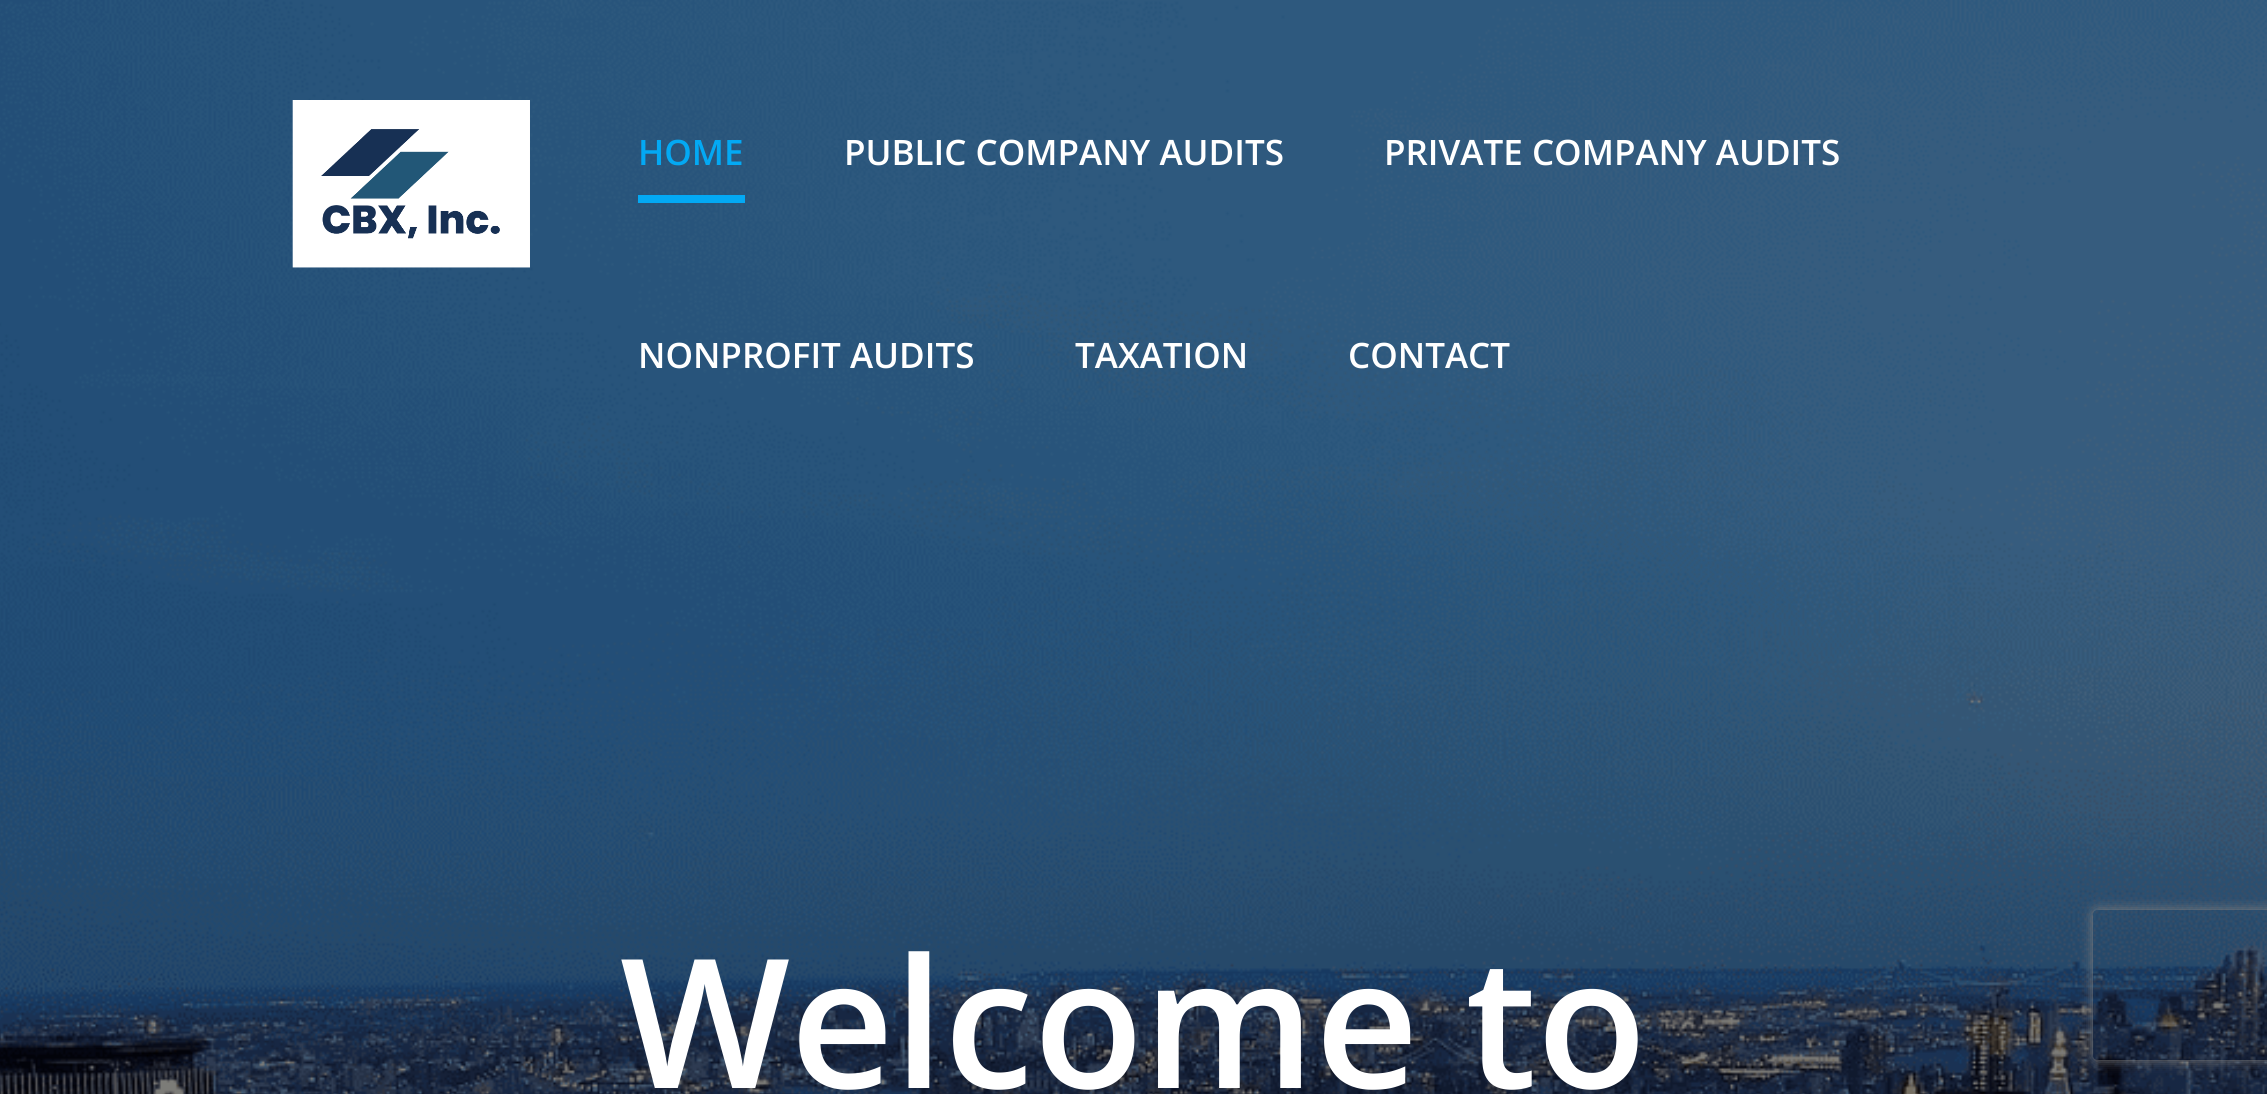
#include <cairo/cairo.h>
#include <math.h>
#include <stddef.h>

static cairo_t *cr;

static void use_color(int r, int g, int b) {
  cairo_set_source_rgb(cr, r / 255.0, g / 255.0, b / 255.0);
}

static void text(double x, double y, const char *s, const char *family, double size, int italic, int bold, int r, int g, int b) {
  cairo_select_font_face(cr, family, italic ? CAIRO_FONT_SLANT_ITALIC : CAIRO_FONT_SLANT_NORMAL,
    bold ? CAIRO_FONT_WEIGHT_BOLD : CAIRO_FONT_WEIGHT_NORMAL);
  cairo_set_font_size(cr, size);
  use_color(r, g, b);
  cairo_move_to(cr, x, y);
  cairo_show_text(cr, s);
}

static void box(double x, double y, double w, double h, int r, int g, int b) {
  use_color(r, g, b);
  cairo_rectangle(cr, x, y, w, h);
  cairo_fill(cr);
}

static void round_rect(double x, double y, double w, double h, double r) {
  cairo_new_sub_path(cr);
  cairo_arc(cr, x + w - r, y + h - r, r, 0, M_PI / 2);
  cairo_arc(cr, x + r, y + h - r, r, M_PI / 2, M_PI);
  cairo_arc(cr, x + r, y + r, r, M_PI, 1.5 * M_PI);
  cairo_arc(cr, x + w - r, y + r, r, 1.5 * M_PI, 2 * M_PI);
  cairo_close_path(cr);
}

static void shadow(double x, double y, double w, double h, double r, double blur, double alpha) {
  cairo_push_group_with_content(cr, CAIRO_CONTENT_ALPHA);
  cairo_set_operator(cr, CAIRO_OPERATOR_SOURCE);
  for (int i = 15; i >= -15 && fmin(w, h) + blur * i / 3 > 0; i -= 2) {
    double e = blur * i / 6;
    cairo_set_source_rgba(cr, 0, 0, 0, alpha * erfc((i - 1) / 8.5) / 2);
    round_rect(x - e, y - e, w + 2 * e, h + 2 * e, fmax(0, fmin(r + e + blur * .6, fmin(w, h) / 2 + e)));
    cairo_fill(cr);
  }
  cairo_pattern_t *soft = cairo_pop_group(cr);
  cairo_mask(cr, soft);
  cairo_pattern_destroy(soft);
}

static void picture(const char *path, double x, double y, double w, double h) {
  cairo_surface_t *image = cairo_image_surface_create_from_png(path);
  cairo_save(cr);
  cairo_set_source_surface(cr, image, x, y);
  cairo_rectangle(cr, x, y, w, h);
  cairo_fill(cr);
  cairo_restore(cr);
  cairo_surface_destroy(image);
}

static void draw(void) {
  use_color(255, 255, 255);
  cairo_paint(cr);
  picture("img_02.png", 0, 0, 2267, 1094);
  picture("img_01.png", 292, 100, 238, 168);
  box(638, 195, 107, 8, 3, 169, 244);
  cairo_save(cr);
  cairo_set_fill_rule(cr, CAIRO_FILL_RULE_EVEN_ODD);
  cairo_new_path(cr);
  cairo_move_to(cr, 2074, 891);
  cairo_line_to(cr, 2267, 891);
  cairo_line_to(cr, 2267, 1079);
  cairo_line_to(cr, 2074, 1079);
  cairo_close_path(cr);
  cairo_move_to(cr, 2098, 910);
  cairo_line_to(cr, 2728, 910);
  cairo_curve_to(cr, 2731, 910, 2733, 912, 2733, 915);
  cairo_line_to(cr, 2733, 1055);
  cairo_curve_to(cr, 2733, 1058, 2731, 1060, 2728, 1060);
  cairo_line_to(cr, 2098, 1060);
  cairo_curve_to(cr, 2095, 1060, 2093, 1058, 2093, 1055);
  cairo_line_to(cr, 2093, 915);
  cairo_curve_to(cr, 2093, 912, 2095, 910, 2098, 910);
  cairo_close_path(cr);
  cairo_clip(cr);
  use_color(128, 128, 128);
  shadow(2093, 910, 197, 150, 5, 6, 1);
  cairo_restore(cr);
  text(638, 165, "HOME", "Open Sans SemiBold", 35, 0, 0, 3, 169, 244);
  text(844, 165, "PUBLIC COMPANY AUDITS", "Open Sans SemiBold", 35, 0, 0, 255, 255, 255);
  text(1384, 165, "PRIVATE COMPANY AUDITS", "Open Sans SemiBold", 35, 0, 0, 255, 255, 255);
  text(638, 368, "NONPROFIT AUDITS", "Open Sans SemiBold", 35, 0, 0, 255, 255, 255);
  text(1075, 368, "TAXATION", "Open Sans SemiBold", 35, 0, 0, 255, 255, 255);
  text(1348, 368, "CONTACT", "Open Sans SemiBold", 35, 0, 0, 255, 255, 255);
  text(620, 1088, "Welcome to", "Open Sans SemiBold", 180, 0, 0, 255, 255, 255);
}

int main(void) {
  cairo_surface_t *surface = cairo_image_surface_create(CAIRO_FORMAT_RGB24, 2267, 1094);
  cr = cairo_create(surface);
  cairo_font_options_t *options = cairo_font_options_create();
  cairo_font_options_set_hint_metrics(options, CAIRO_HINT_METRICS_OFF);
  cairo_font_options_set_hint_style(options, CAIRO_HINT_STYLE_NONE);
  cairo_set_font_options(cr, options);
  cairo_set_miter_limit(cr, 4);
  draw();
  cairo_surface_write_to_png(surface, "out.png");
  cairo_font_options_destroy(options);
  cairo_destroy(cr);
  cairo_surface_destroy(surface);
  return 0;
}
